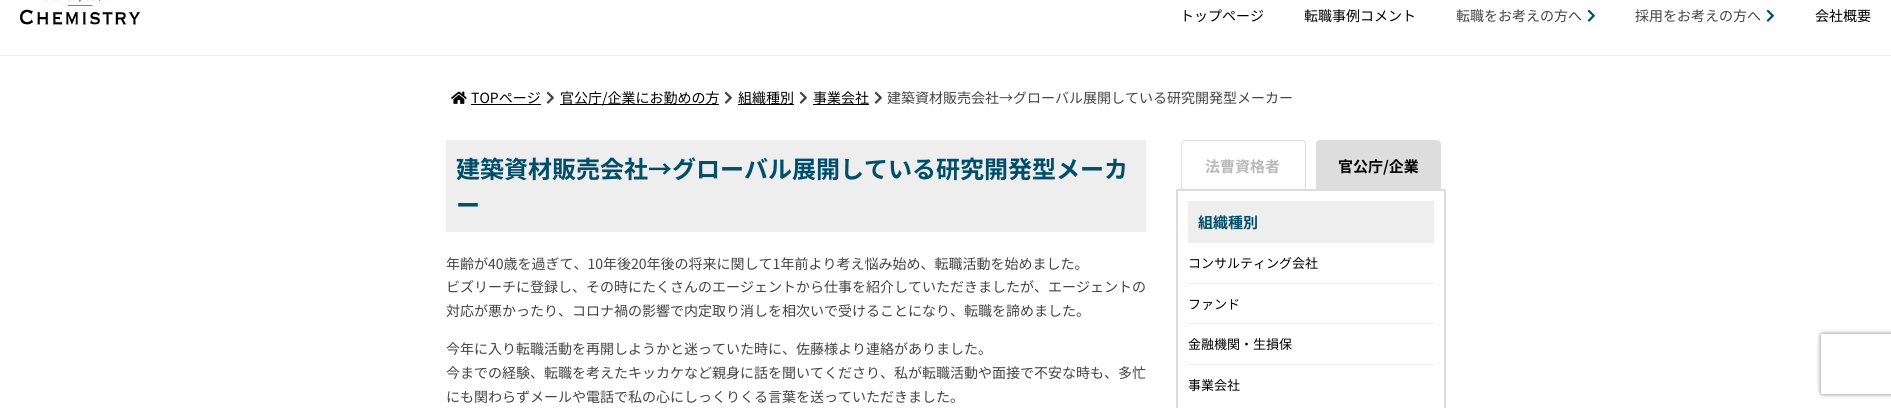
#include <cairo/cairo.h>
#include <math.h>
#include <stddef.h>

static cairo_t *cr;

static void use_color(int r, int g, int b) {
  cairo_set_source_rgb(cr, r / 255.0, g / 255.0, b / 255.0);
}

static void text(double x, double y, const char *s, const char *family, double size, int italic, int bold, int r, int g, int b) {
  cairo_select_font_face(cr, family, italic ? CAIRO_FONT_SLANT_ITALIC : CAIRO_FONT_SLANT_NORMAL,
    bold ? CAIRO_FONT_WEIGHT_BOLD : CAIRO_FONT_WEIGHT_NORMAL);
  cairo_set_font_size(cr, size);
  use_color(r, g, b);
  cairo_move_to(cr, x, y);
  cairo_show_text(cr, s);
}

static void box(double x, double y, double w, double h, int r, int g, int b) {
  use_color(r, g, b);
  cairo_rectangle(cr, x, y, w, h);
  cairo_fill(cr);
}

static void round_rect(double x, double y, double w, double h, double r) {
  cairo_new_sub_path(cr);
  cairo_arc(cr, x + w - r, y + h - r, r, 0, M_PI / 2);
  cairo_arc(cr, x + r, y + h - r, r, M_PI / 2, M_PI);
  cairo_arc(cr, x + r, y + r, r, M_PI, 1.5 * M_PI);
  cairo_arc(cr, x + w - r, y + r, r, 1.5 * M_PI, 2 * M_PI);
  cairo_close_path(cr);
}

static void shadow(double x, double y, double w, double h, double r, double blur, double alpha) {
  cairo_push_group_with_content(cr, CAIRO_CONTENT_ALPHA);
  cairo_set_operator(cr, CAIRO_OPERATOR_SOURCE);
  for (int i = 15; i >= -15 && fmin(w, h) + blur * i / 3 > 0; i -= 2) {
    double e = blur * i / 6;
    cairo_set_source_rgba(cr, 0, 0, 0, alpha * erfc((i - 1) / 8.5) / 2);
    round_rect(x - e, y - e, w + 2 * e, h + 2 * e, fmax(0, fmin(r + e + blur * .6, fmin(w, h) / 2 + e)));
    cairo_fill(cr);
  }
  cairo_pattern_t *soft = cairo_pop_group(cr);
  cairo_mask(cr, soft);
  cairo_pattern_destroy(soft);
}

static void picture(const char *path, double x, double y, double w, double h) {
  cairo_surface_t *image = cairo_image_surface_create_from_png(path);
  cairo_save(cr);
  cairo_set_source_surface(cr, image, x, y);
  cairo_rectangle(cr, x, y, w, h);
  cairo_fill(cr);
  cairo_restore(cr);
  cairo_surface_destroy(image);
}

static void draw(void) {
  use_color(255, 255, 255);
  cairo_paint(cr);
  box(0, 55, 1891, 1, 238, 238, 238);
  picture("img_01.png", 20, 0, 120, 25);
  picture("img_02.png", 1587, 9, 8, 13);
  picture("img_02.png", 1766, 9, 8, 13);
  picture("img_03.png", 451, 91, 16, 13);
  box(471, 104, 70, 1, 0, 0, 0);
  picture("img_04.png", 546, 91, 8, 13);
  box(560, 104, 159, 1, 0, 0, 0);
  picture("img_04.png", 724, 91, 8, 13);
  box(738, 104, 56, 1, 0, 0, 0);
  picture("img_04.png", 799, 91, 8, 13);
  box(813, 104, 56, 1, 0, 0, 0);
  picture("img_04.png", 874, 91, 8, 13);
  box(446, 140, 700, 92, 238, 238, 238);
  cairo_rectangle(cr, 1177, 190, 268, 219);
  use_color(221, 221, 221);
  cairo_stroke(cr);
  use_color(255, 255, 255);
  cairo_new_path(cr);
  cairo_move_to(cr, 1185, 140.5);
  cairo_line_to(cr, 1302, 140.5);
  cairo_curve_to(cr, 1304, 140.5, 1305.5, 142, 1305.5, 144);
  cairo_line_to(cr, 1305.5, 189.5);
  cairo_line_to(cr, 1181.5, 189.5);
  cairo_line_to(cr, 1181.5, 144);
  cairo_curve_to(cr, 1181.5, 142, 1183, 140.5, 1185, 140.5);
  cairo_close_path(cr);
  cairo_fill_preserve(cr);
  use_color(221, 221, 221);
  cairo_set_line_width(cr, 1);
  cairo_stroke(cr);
  cairo_new_path(cr);
  cairo_move_to(cr, 1320, 140.5);
  cairo_line_to(cr, 1437, 140.5);
  cairo_curve_to(cr, 1439, 140.5, 1440.5, 142, 1440.5, 144);
  cairo_line_to(cr, 1440.5, 189.5);
  cairo_line_to(cr, 1316.5, 189.5);
  cairo_line_to(cr, 1316.5, 144);
  cairo_curve_to(cr, 1316.5, 142, 1318, 140.5, 1320, 140.5);
  cairo_close_path(cr);
  cairo_fill_preserve(cr);
  cairo_stroke(cr);
  box(1188, 201, 246, 42, 238, 238, 238);
  box(1188, 283, 246, 1, 238, 238, 238);
  box(1188, 323, 246, 1, 238, 238, 238);
  box(1188, 364, 246, 1, 238, 238, 238);
  cairo_save(cr);
  cairo_set_fill_rule(cr, CAIRO_FILL_RULE_EVEN_ODD);
  cairo_new_path(cr);
  cairo_move_to(cr, 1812, 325);
  cairo_line_to(cr, 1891, 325);
  cairo_line_to(cr, 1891, 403);
  cairo_line_to(cr, 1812, 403);
  cairo_close_path(cr);
  cairo_move_to(cr, 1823, 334);
  cairo_line_to(cr, 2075, 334);
  cairo_curve_to(cr, 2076, 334, 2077, 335, 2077, 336);
  cairo_line_to(cr, 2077, 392);
  cairo_curve_to(cr, 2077, 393, 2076, 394, 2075, 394);
  cairo_line_to(cr, 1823, 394);
  cairo_curve_to(cr, 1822, 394, 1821, 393, 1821, 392);
  cairo_line_to(cr, 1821, 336);
  cairo_curve_to(cr, 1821, 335, 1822, 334, 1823, 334);
  cairo_close_path(cr);
  cairo_clip(cr);
  use_color(128, 128, 128);
  shadow(1821, 334, 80, 60, 2, 2.5, 1);
  cairo_restore(cr);
  text(1180, 21, "トップページ", "Noto Sans JP", 14, 0, 0, 0, 0, 0);
  text(1304, 21, "転職事例コメント", "Noto Sans JP", 14, 0, 0, 0, 0, 0);
  text(1456, 21, "転職をお考えの方へ", "Noto Sans JP", 14, 0, 0, 68, 68, 68);
  text(1635, 21, "採用をお考えの方へ", "Noto Sans JP", 14, 0, 0, 68, 68, 68);
  text(1815, 21, "会社概要", "Noto Sans JP", 14, 0, 0, 0, 0, 0);
  text(471, 103, "TOPページ", "Noto Sans JP", 14, 0, 0, 0, 0, 0);
  text(560, 103, "官公庁/企業にお勤めの方", "Noto Sans JP", 14, 0, 0, 0, 0, 0);
  text(738, 103, "組織種別", "Noto Sans JP", 14, 0, 0, 0, 0, 0);
  text(813, 103, "事業会社", "Noto Sans JP", 14, 0, 0, 0, 0, 0);
  text(887, 103, "建築資材販売会社→グローバル展開している研究開発型メーカー", "Noto Sans JP", 14, 0, 0, 68, 68, 68);
  text(456, 178, "建築資材販売会社→グローバル展開している研究開発型メーカ", "Noto Sans JP", 24, 0, 1, 0, 78, 105);
  text(456, 214, "ー", "Noto Sans JP", 24, 0, 1, 0, 78, 105);
  text(446, 269, "年齢が40歳を過ぎて、10年後20年後の将来に関して1年前より考え悩み始め、転職活動を始めました。", "Noto Sans JP", 14, 0, 0, 68, 68, 68);
  text(446, 292, "ビズリーチに登録し、その時にたくさんのエージェントから仕事を紹介していただきましたが、エージェントの", "Noto Sans JP", 14, 0, 0, 68, 68, 68);
  text(446, 316, "対応が悪かったり、コロナ禍の影響で内定取り消しを相次いで受けることになり、転職を諦めました。", "Noto Sans JP", 14, 0, 0, 68, 68, 68);
  text(446, 354, "今年に入り転職活動を再開しようかと迷っていた時に、佐藤様より連絡がありました。", "Noto Sans JP", 14, 0, 0, 68, 68, 68);
  text(446, 378, "今までの経験、転職を考えたキッカケなど親身に話を聞いてくださり、私が転職活動や面接で不安な時も、多忙", "Noto Sans JP", 14, 0, 0, 68, 68, 68);
  text(446, 402, "にも関わらずメールや電話で私の心にしっくりくる言葉を送っていただきました。", "Noto Sans JP", 14, 0, 0, 68, 68, 68);
  text(1205, 172, "法曹資格者", "Noto Sans JP", 15, 0, 1, 185, 185, 185);
  text(1338, 172, "官公庁/企業", "Noto Sans JP", 15, 0, 1, 0, 0, 0);
  text(1198, 228, "組織種別", "Noto Sans JP", 15, 0, 1, 0, 78, 105);
  text(1188, 268, "コンサルティング会社", "Noto Sans JP", 13, 0, 0, 0, 0, 0);
  text(1188, 309, "ファンド", "Noto Sans JP", 13, 0, 0, 0, 0, 0);
  text(1188, 349, "金融機関・生損保", "Noto Sans JP", 13, 0, 0, 0, 0, 0);
  text(1188, 390, "事業会社", "Noto Sans JP", 13, 0, 0, 0, 0, 0);
}

int main(void) {
  cairo_surface_t *surface = cairo_image_surface_create(CAIRO_FORMAT_RGB24, 1891, 408);
  cr = cairo_create(surface);
  cairo_font_options_t *options = cairo_font_options_create();
  cairo_font_options_set_hint_metrics(options, CAIRO_HINT_METRICS_OFF);
  cairo_font_options_set_hint_style(options, CAIRO_HINT_STYLE_NONE);
  cairo_set_font_options(cr, options);
  cairo_set_miter_limit(cr, 4);
  draw();
  cairo_surface_write_to_png(surface, "out.png");
  cairo_font_options_destroy(options);
  cairo_destroy(cr);
  cairo_surface_destroy(surface);
  return 0;
}
